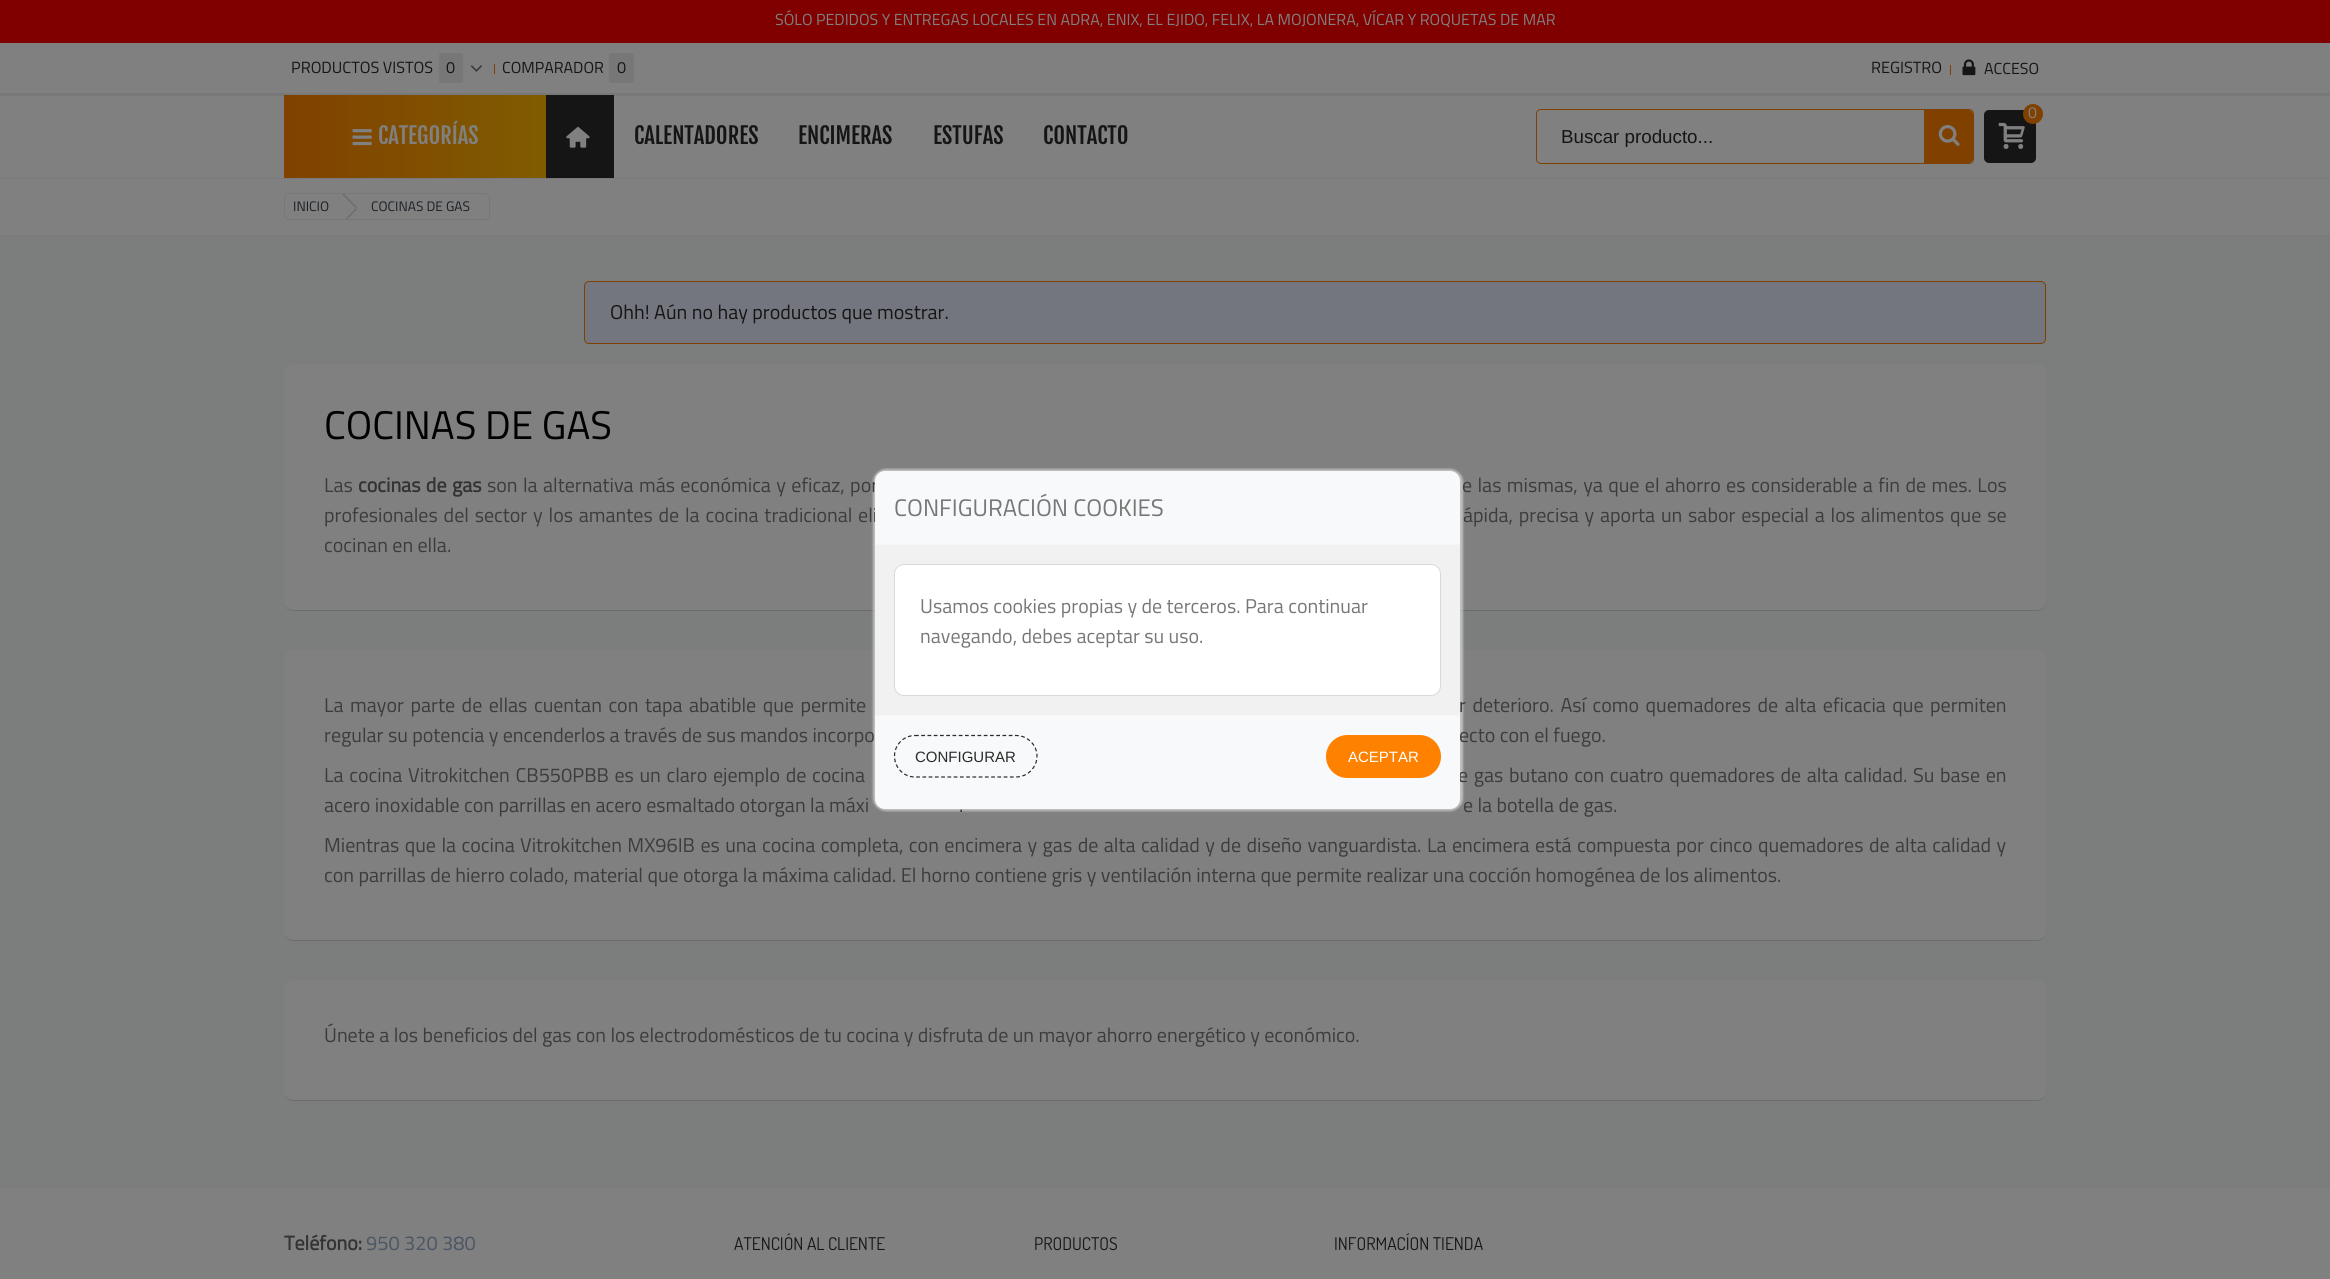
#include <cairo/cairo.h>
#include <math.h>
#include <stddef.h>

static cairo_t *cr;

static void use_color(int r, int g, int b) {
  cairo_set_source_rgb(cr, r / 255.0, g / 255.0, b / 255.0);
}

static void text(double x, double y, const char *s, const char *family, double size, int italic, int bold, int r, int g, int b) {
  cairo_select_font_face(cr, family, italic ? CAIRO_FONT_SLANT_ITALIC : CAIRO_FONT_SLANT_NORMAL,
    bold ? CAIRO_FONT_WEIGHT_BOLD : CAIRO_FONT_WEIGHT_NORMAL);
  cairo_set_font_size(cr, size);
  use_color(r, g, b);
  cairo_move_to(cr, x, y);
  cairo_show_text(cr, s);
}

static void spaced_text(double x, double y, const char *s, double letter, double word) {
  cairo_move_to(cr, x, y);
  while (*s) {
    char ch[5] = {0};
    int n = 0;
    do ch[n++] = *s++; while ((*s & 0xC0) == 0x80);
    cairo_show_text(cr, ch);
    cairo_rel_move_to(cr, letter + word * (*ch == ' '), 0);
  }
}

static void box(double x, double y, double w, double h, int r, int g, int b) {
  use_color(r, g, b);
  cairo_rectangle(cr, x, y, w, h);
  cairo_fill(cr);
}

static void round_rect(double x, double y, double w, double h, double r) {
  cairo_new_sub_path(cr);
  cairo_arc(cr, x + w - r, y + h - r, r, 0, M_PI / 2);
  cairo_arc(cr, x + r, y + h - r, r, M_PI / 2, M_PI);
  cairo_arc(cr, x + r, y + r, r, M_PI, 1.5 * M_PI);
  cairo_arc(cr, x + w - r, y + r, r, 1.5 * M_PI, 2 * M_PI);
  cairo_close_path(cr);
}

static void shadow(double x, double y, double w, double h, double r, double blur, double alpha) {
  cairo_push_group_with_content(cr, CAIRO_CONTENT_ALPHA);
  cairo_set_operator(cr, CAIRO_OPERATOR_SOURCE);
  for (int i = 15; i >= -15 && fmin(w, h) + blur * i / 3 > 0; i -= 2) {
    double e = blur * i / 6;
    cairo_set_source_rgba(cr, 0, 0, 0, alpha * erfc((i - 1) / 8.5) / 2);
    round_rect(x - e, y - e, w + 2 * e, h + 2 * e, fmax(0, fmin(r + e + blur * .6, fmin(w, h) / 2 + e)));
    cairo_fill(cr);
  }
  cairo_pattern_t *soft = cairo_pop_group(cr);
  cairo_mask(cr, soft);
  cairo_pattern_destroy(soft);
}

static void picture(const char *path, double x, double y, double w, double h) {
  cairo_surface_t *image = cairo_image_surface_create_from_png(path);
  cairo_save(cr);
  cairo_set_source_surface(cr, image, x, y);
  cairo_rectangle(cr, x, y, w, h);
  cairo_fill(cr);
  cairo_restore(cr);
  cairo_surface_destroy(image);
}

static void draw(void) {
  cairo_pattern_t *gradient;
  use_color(124, 125, 125);
  cairo_paint(cr);
  box(0, 43, 2330, 135, 128, 128, 128);
  box(0, 0, 2330, 43, 128, 0, 0);
  box(0, 93, 2330, 3, 120, 120, 120);
  use_color(119, 119, 119);
  round_rect(439, 53, 24, 30, 2.5);
  cairo_fill(cr);
  picture("img_01.png", 470, 65, 12, 7);
  box(494, 64, 1, 10, 128, 65, 0);
  use_color(119, 119, 119);
  round_rect(609, 53, 25, 30, 2.5);
  cairo_fill(cr);
  box(1950, 65, 1, 10, 128, 65, 0);
  picture("img_02.png", 1962, 59, 14, 17);
  gradient = cairo_pattern_create_linear(284, 136, 546, 136);
  cairo_pattern_add_color_stop_rgba(gradient, 0, 0.502, 0.255, 0, 1);
  cairo_pattern_add_color_stop_rgba(gradient, 1, 0.502, 0.361, 0, 1);
  cairo_set_source(cr, gradient);
  cairo_pattern_destroy(gradient);
  cairo_rectangle(cr, 284, 95, 262, 83);
  cairo_fill(cr);
  picture("img_03.png", 352, 129, 20, 17);
  box(546, 95, 68, 83, 21, 21, 21);
  picture("img_04.png", 566, 126, 24, 22);
  round_rect(1984, 110, 52, 53, 5);
  cairo_fill(cr);
  picture("img_05.png", 1998, 122, 27, 27);
  use_color(128, 65, 0);
  cairo_arc(cr, 2033, 114, 10, 0, 2 * M_PI);
  cairo_fill(cr);
  round_rect(1536.5, 109.5, 437, 54, 4.5);
  cairo_set_line_width(cr, 1);
  cairo_stroke(cr);
  cairo_new_path(cr);
  cairo_move_to(cr, 1924, 110);
  cairo_line_to(cr, 1968, 110);
  cairo_curve_to(cr, 1971, 110, 1973, 112, 1973, 115);
  cairo_line_to(cr, 1973, 158);
  cairo_curve_to(cr, 1973, 161, 1971, 163, 1968, 163);
  cairo_line_to(cr, 1924, 163);
  cairo_close_path(cr);
  cairo_fill(cr);
  picture("img_06.png", 1938, 125, 22, 21);
  box(0, 179, 2330, 56, 128, 128, 128);
  box(0, 178, 2330, 1, 122, 122, 122);
  box(0, 235, 2330, 1, 122, 122, 122);
  round_rect(284.5, 193.5, 205, 26, 4.5);
  use_color(119, 119, 119);
  cairo_stroke(cr);
  use_color(107, 106, 106);
  cairo_new_path(cr);
  cairo_move_to(cr, 344, 194);
  cairo_line_to(cr, 357, 207.5);
  cairo_line_to(cr, 356, 208);
  cairo_line_to(cr, 342, 194);
  cairo_close_path(cr);
  cairo_move_to(cr, 356, 208);
  cairo_line_to(cr, 357, 209);
  cairo_line_to(cr, 347, 219);
  cairo_line_to(cr, 345.5, 219);
  cairo_close_path(cr);
  cairo_fill(cr);
  use_color(115, 118, 126);
  round_rect(584.5, 281.5, 1461, 62, 4.5);
  cairo_fill_preserve(cr);
  use_color(128, 65, 0);
  cairo_stroke(cr);
  use_color(108, 109, 109);
  cairo_new_path(cr);
  cairo_move_to(cr, 284, 603);
  cairo_curve_to(cr, 285, 608, 289, 611, 294, 611);
  cairo_line_to(cr, 2036, 611);
  cairo_curve_to(cr, 2041, 611, 2045, 608, 2046, 603);
  cairo_curve_to(cr, 2045, 607, 2041, 610, 2036, 610);
  cairo_line_to(cr, 294, 610);
  cairo_curve_to(cr, 289, 610, 285, 607, 284, 603);
  cairo_close_path(cr);
  cairo_fill(cr);
  use_color(128, 128, 128);
  round_rect(284, 364, 1762, 246, 10);
  cairo_fill(cr);
  use_color(108, 109, 109);
  cairo_new_path(cr);
  cairo_move_to(cr, 284, 933);
  cairo_curve_to(cr, 285, 938, 289, 941, 294, 941);
  cairo_line_to(cr, 2036, 941);
  cairo_curve_to(cr, 2041, 941, 2045, 938, 2046, 933);
  cairo_curve_to(cr, 2045, 937, 2041, 940, 2036, 940);
  cairo_line_to(cr, 294, 940);
  cairo_curve_to(cr, 289, 940, 285, 937, 284, 933);
  cairo_close_path(cr);
  cairo_fill(cr);
  use_color(128, 128, 128);
  round_rect(284, 650, 1762, 290, 10);
  cairo_fill(cr);
  use_color(108, 109, 109);
  cairo_new_path(cr);
  cairo_move_to(cr, 284, 1093);
  cairo_curve_to(cr, 285, 1098, 289, 1101, 294, 1101);
  cairo_line_to(cr, 2036, 1101);
  cairo_curve_to(cr, 2041, 1101, 2045, 1098, 2046, 1093);
  cairo_curve_to(cr, 2045, 1097, 2041, 1100, 2036, 1100);
  cairo_line_to(cr, 294, 1100);
  cairo_curve_to(cr, 289, 1100, 285, 1097, 284, 1093);
  cairo_close_path(cr);
  cairo_fill(cr);
  use_color(128, 128, 128);
  round_rect(284, 980, 1762, 120, 10);
  cairo_fill(cr);
  box(0, 1188, 2330, 91, 128, 128, 128);
  use_color(255, 255, 255);
  shadow(873, 469, 590, 342, 13, 1, 0.5);
  text(775, 25, "SÓLO PEDIDOS Y ENTREGAS LOCALES EN ADRA, ENIX, EL EJIDO, FELIX, LA MOJONERA, VÍCAR Y ROQUETAS DE MAR", "Titillium Web", 16, 0, 0, 128, 128, 128);
  text(291, 73, "PRODUCTOS VISTOS", "Titillium Web", 16.25, 0, 0, 21, 21, 21);
  text(446, 73, "0", "Titillium Web", 16.25, 0, 0, 21, 21, 21);
  text(502, 73, "COMPARADOR", "Titillium Web", 16, 0, 0, 21, 21, 21);
  text(617, 73, "0", "Titillium Web", 16.25, 0, 0, 21, 21, 21);
  text(1871, 73, "REGISTRO", "Titillium Web", 16.25, 0, 0, 21, 21, 21);
  text(1984, 74, "ACCESO", "Titillium Web", 16, 0, 0, 21, 21, 21);
  text(378, 144, "CATEGORÍAS", "Fjalla One", 22.5, 0, 0, 128, 128, 128);
  text(634, 144, "CALENTADORES", "Fjalla One", 22.5, 0, 0, 21, 21, 21);
  text(798, 144, "ENCIMERAS", "Fjalla One", 22.5, 0, 0, 21, 21, 21);
  text(933, 144, "ESTUFAS", "Fjalla One", 22.5, 0, 0, 21, 21, 21);
  text(1043, 144, "CONTACTO", "Fjalla One", 22.5, 0, 0, 21, 21, 21);
  text(2028, 118, "0", "Titillium Web", 16, 0, 0, 128, 128, 128);
  text(1561, 143, "Buscar producto...", "Liberation Sans", 18.75, 0, 0, 21, 21, 21);
  text(293, 211, "INICIO", "Titillium Web", 13.75, 0, 0, 26, 31, 36);
  text(371, 211, "COCINAS DE GAS", "Titillium Web", 13.75, 0, 0, 26, 31, 36);
  text(610, 319, "Ohh! Aún no hay productos que mostrar.", "Titillium Web", 20, 0, 0, 21, 21, 21);
  text(324, 439, "COCINAS DE GAS", "Titillium Web", 40, 0, 0, 0, 0, 0);
  text(324, 492, "Las", "Titillium Web", 20, 0, 0, 60, 60, 60);
  cairo_select_font_face(cr, "Titillium Web", CAIRO_FONT_SLANT_NORMAL, CAIRO_FONT_WEIGHT_BOLD);
  use_color(51, 51, 51);
  spaced_text(358, 492, "cocinas de gas", 0, 1);
  cairo_select_font_face(cr, "Titillium Web", CAIRO_FONT_SLANT_NORMAL, CAIRO_FONT_WEIGHT_NORMAL);
  use_color(60, 60, 60);
  spaced_text(487, 492, "son la alternativa más económica y eficaz, por", 0, 1);
  spaced_text(1462, 492, "e las mismas, ya que el ahorro es considerable a fin de mes. Los", 0, 1);
  spaced_text(324, 522, "profesionales del sector y los amantes de la cocina tradicional eli", 0, 1.4);
  spaced_text(1463, 522, "ápida, precisa y aporta un sabor especial a los alimentos que se", 0, 1.4);
  text(324, 552, "cocinan en ella.", "Titillium Web", 20, 0, 0, 60, 60, 60);
  spaced_text(324, 712, "La mayor parte de ellas cuentan con tapa abatible que permite", 0, 2.1);
  spaced_text(1459, 712, "r deterioro. Así como quemadores de alta eficacia que permiten", 0, 2.1);
  text(324, 742, "regular su potencia y encenderlos a través de sus mandos incorpo", "Titillium Web", 20, 0, 0, 60, 60, 60);
  text(1459, 742, "ecto con el fuego.", "Titillium Web", 20, 0, 0, 60, 60, 60);
  spaced_text(324, 782, "La cocina Vitrokitchen CB550PBB es un claro ejemplo de cocina", 0, 1.25);
  spaced_text(1458, 782, "e gas butano con cuatro quemadores de alta calidad. Su base en", 0, 1.25);
  text(324, 812, "acero inoxidable con parrillas en acero esmaltado otorgan la máxi", "Titillium Web", 20, 0, 0, 60, 60, 60);
  text(959, 812, ".", "Titillium Web", 20, 0, 0, 60, 60, 60);
  text(1463, 812, "e la botella de gas.", "Titillium Web", 20, 0, 0, 60, 60, 60);
  spaced_text(324, 852, "Mientras que la cocina Vitrokitchen MX96IB es una cocina completa, con encimera y gas de alta calidad y de diseño vanguardista. La encimera está compuesta por cinco quemadores de alta calidad y", 0, 1.05);
  text(324, 882, "con parrillas de hierro colado, material que otorga la máxima calidad. El horno contiene gris y ventilación interna que permite realizar una cocción homogénea de los alimentos.", "Titillium Web", 20, 0, 0, 60, 60, 60);
  text(324, 1042, "Únete a los beneficios del gas con los electrodomésticos de tu cocina y disfruta de un mayor ahorro energético y económico.", "Titillium Web", 20, 0, 0, 60, 60, 60);
  text(284, 1250, "Teléfono:", "Titillium Web", 20, 0, 1, 51, 51, 51);
  text(366, 1250, "950 320 380", "Titillium Web", 20, 0, 0, 75, 85, 101);
  text(734, 1250, "ATENCIÓN AL CLIENTE", "Dosis", 17.5, 0, 0, 21, 21, 21);
  text(1034, 1250, "PRODUCTOS", "Dosis", 17.5, 0, 0, 21, 21, 21);
  text(1334, 1250, "INFORMACÍON TIENDA", "Dosis", 17.5, 0, 0, 21, 21, 21);
  use_color(248, 249, 250);
  round_rect(875, 471, 585, 338, 10);
  cairo_fill(cr);
  box(875, 544, 585, 1, 246, 246, 246);
  text(894, 516, "CONFIGURACIÓN COOKIES", "Titillium Web", 24, 0, 0, 119, 119, 119);
  box(875, 545, 585, 170, 241, 241, 241);
  use_color(255, 255, 255);
  round_rect(894.5, 564.5, 546, 131, 9.5);
  cairo_fill_preserve(cr);
  use_color(217, 217, 217);
  cairo_stroke(cr);
  text(920, 613, "Usamos cookies propias y de terceros. Para continuar", "Titillium Web", 20, 0, 0, 119, 119, 119);
  text(920, 643, "navegando, debes aceptar su uso.", "Titillium Web", 20, 0, 0, 119, 119, 119);
  box(875, 715, 585, 1, 246, 246, 246);
  cairo_new_path(cr);
  cairo_move_to(cr, 915, 735.5);
  cairo_line_to(cr, 1016, 735.5);
  cairo_curve_to(cr, 1027.5, 735.5, 1037, 745, 1037, 756);
  cairo_curve_to(cr, 1037, 767.5, 1027.5, 777, 1016, 777);
  cairo_line_to(cr, 915, 777);
  cairo_curve_to(cr, 903.5, 777, 894.5, 767.5, 894.5, 756);
  cairo_curve_to(cr, 894.5, 745, 903.5, 735.5, 915, 735.5);
  cairo_close_path(cr);
  use_color(42, 42, 42);
  cairo_set_line_width(cr, 1.2);
  cairo_set_dash(cr, (double[]){3.75, 2.5}, 2, 0);
  cairo_stroke(cr);
  text(915, 762, "CONFIGURAR", "Liberation Sans", 15, 0, 0, 42, 42, 42);
  use_color(255, 129, 0);
  round_rect(1327.5, 736.5, 112, 40, 20);
  cairo_fill_preserve(cr);
  cairo_set_line_width(cr, 3);
  cairo_set_dash(cr, NULL, 0, 0);
  cairo_stroke(cr);
  text(1348, 762, "ACEPTAR", "Liberation Sans", 15, 0, 0, 255, 255, 255);
}

int main(void) {
  cairo_surface_t *surface = cairo_image_surface_create(CAIRO_FORMAT_RGB24, 2330, 1279);
  cr = cairo_create(surface);
  cairo_font_options_t *options = cairo_font_options_create();
  cairo_font_options_set_hint_metrics(options, CAIRO_HINT_METRICS_OFF);
  cairo_font_options_set_hint_style(options, CAIRO_HINT_STYLE_NONE);
  cairo_set_font_options(cr, options);
  cairo_set_miter_limit(cr, 4);
  draw();
  cairo_surface_write_to_png(surface, "out.png");
  cairo_font_options_destroy(options);
  cairo_destroy(cr);
  cairo_surface_destroy(surface);
  return 0;
}
